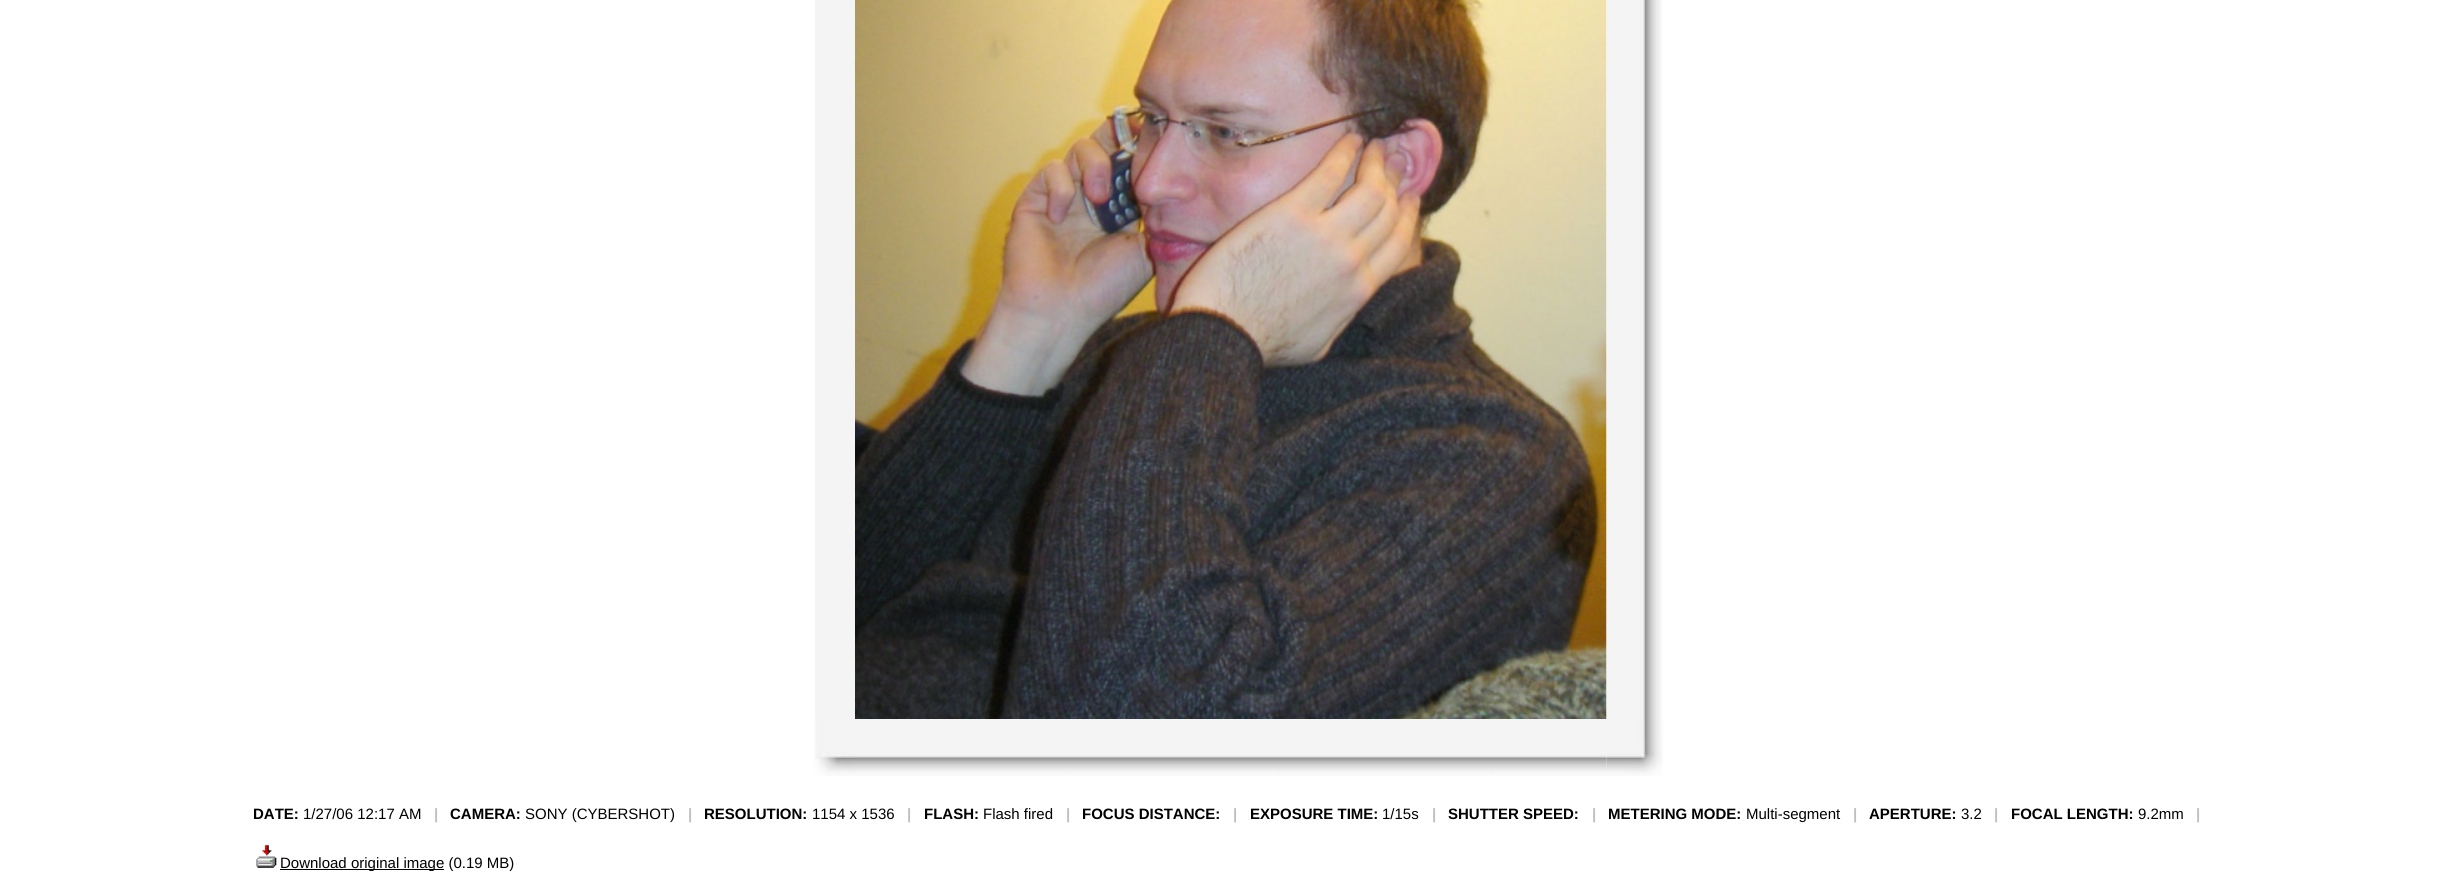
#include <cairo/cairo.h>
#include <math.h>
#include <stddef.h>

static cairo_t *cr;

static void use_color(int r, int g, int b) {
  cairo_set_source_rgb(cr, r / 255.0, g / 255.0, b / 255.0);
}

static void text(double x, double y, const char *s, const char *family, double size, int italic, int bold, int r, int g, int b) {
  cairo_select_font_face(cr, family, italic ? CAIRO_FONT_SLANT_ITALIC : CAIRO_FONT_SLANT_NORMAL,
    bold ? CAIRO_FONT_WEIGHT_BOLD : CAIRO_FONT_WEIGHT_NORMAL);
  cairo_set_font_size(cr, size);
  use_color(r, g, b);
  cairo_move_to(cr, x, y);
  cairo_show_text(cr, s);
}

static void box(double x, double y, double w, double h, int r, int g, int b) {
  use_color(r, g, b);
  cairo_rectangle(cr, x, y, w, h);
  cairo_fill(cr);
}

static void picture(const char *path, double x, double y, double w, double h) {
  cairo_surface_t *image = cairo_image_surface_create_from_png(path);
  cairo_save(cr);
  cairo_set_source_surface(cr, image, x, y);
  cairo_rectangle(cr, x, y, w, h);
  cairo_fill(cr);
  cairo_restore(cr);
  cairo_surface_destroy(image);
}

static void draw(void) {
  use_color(255, 255, 255);
  cairo_paint(cr);
  box(815, 0, 40, 719, 244, 244, 244);
  picture("img_02.png", 1606, 0, 56, 719);
  picture("img_01.png", 855, 0, 752, 719);
  picture("img_03.png", 814, 719, 41, 57);
  picture("img_04.png", 855, 719, 752, 57);
  picture("img_05.png", 1606, 719, 57, 57);
  picture("img_06.png", 256, 845, 21, 23);
  box(280, 869, 164, 1, 0, 0, 0);
  text(253, 819, "DATE:", "Liberation Sans", 15, 0, 1, 0, 0, 0);
  text(303, 819, "1/27/06 12:17 AM", "Liberation Sans", 15, 0, 0, 0, 0, 0);
  text(434, 819, "|", "Liberation Sans", 15, 0, 1, 192, 192, 192);
  text(450, 819, "CAMERA:", "Liberation Sans", 15, 0, 1, 0, 0, 0);
  text(525, 819, "SONY (CYBERSHOT)", "Liberation Sans", 15, 0, 0, 0, 0, 0);
  text(688, 819, "|", "Liberation Sans", 15, 0, 1, 192, 192, 192);
  text(704, 819, "RESOLUTION:", "Liberation Sans", 15, 0, 1, 0, 0, 0);
  text(812, 819, "1154 x 1536", "Liberation Sans", 15, 0, 0, 0, 0, 0);
  text(907, 819, "|", "Liberation Sans", 15, 0, 1, 192, 192, 192);
  text(924, 819, "FLASH:", "Liberation Sans", 15, 0, 1, 0, 0, 0);
  text(983, 819, "Flash fired", "Liberation Sans", 15, 0, 0, 0, 0, 0);
  text(1066, 819, "|", "Liberation Sans", 15, 0, 1, 192, 192, 192);
  text(1082, 819, "FOCUS DISTANCE:", "Liberation Sans", 15, 0, 1, 0, 0, 0);
  text(1233, 819, "|", "Liberation Sans", 15, 0, 1, 192, 192, 192);
  text(1250, 819, "EXPOSURE TIME:", "Liberation Sans", 15, 0, 1, 0, 0, 0);
  text(1382, 819, "1/15s", "Liberation Sans", 15, 0, 0, 0, 0, 0);
  text(1432, 819, "|", "Liberation Sans", 15, 0, 1, 192, 192, 192);
  text(1448, 819, "SHUTTER SPEED:", "Liberation Sans", 15, 0, 1, 0, 0, 0);
  text(1592, 819, "|", "Liberation Sans", 15, 0, 1, 192, 192, 192);
  text(1608, 819, "METERING MODE:", "Liberation Sans", 15, 0, 1, 0, 0, 0);
  text(1746, 819, "Multi-segment", "Liberation Sans", 15, 0, 0, 0, 0, 0);
  text(1853, 819, "|", "Liberation Sans", 15, 0, 1, 192, 192, 192);
  text(1869, 819, "APERTURE:", "Liberation Sans", 15, 0, 1, 0, 0, 0);
  text(1961, 819, "3.2", "Liberation Sans", 15, 0, 0, 0, 0, 0);
  text(1994, 819, "|", "Liberation Sans", 15, 0, 1, 192, 192, 192);
  text(2011, 819, "FOCAL LENGTH:", "Liberation Sans", 15, 0, 1, 0, 0, 0);
  text(2138, 819, "9.2mm", "Liberation Sans", 15, 0, 0, 0, 0, 0);
  text(2196, 819, "|", "Liberation Sans", 15, 0, 1, 192, 192, 192);
  text(280, 868, "Download original image (0.19 MB)", "Liberation Sans", 15, 0, 0, 0, 0, 0);
}

int main(void) {
  cairo_surface_t *surface = cairo_image_surface_create(CAIRO_FORMAT_RGB24, 2461, 871);
  cr = cairo_create(surface);
  cairo_font_options_t *options = cairo_font_options_create();
  cairo_font_options_set_hint_metrics(options, CAIRO_HINT_METRICS_OFF);
  cairo_font_options_set_hint_style(options, CAIRO_HINT_STYLE_NONE);
  cairo_set_font_options(cr, options);
  cairo_set_miter_limit(cr, 4);
  draw();
  cairo_surface_write_to_png(surface, "out.png");
  cairo_font_options_destroy(options);
  cairo_destroy(cr);
  cairo_surface_destroy(surface);
  return 0;
}
